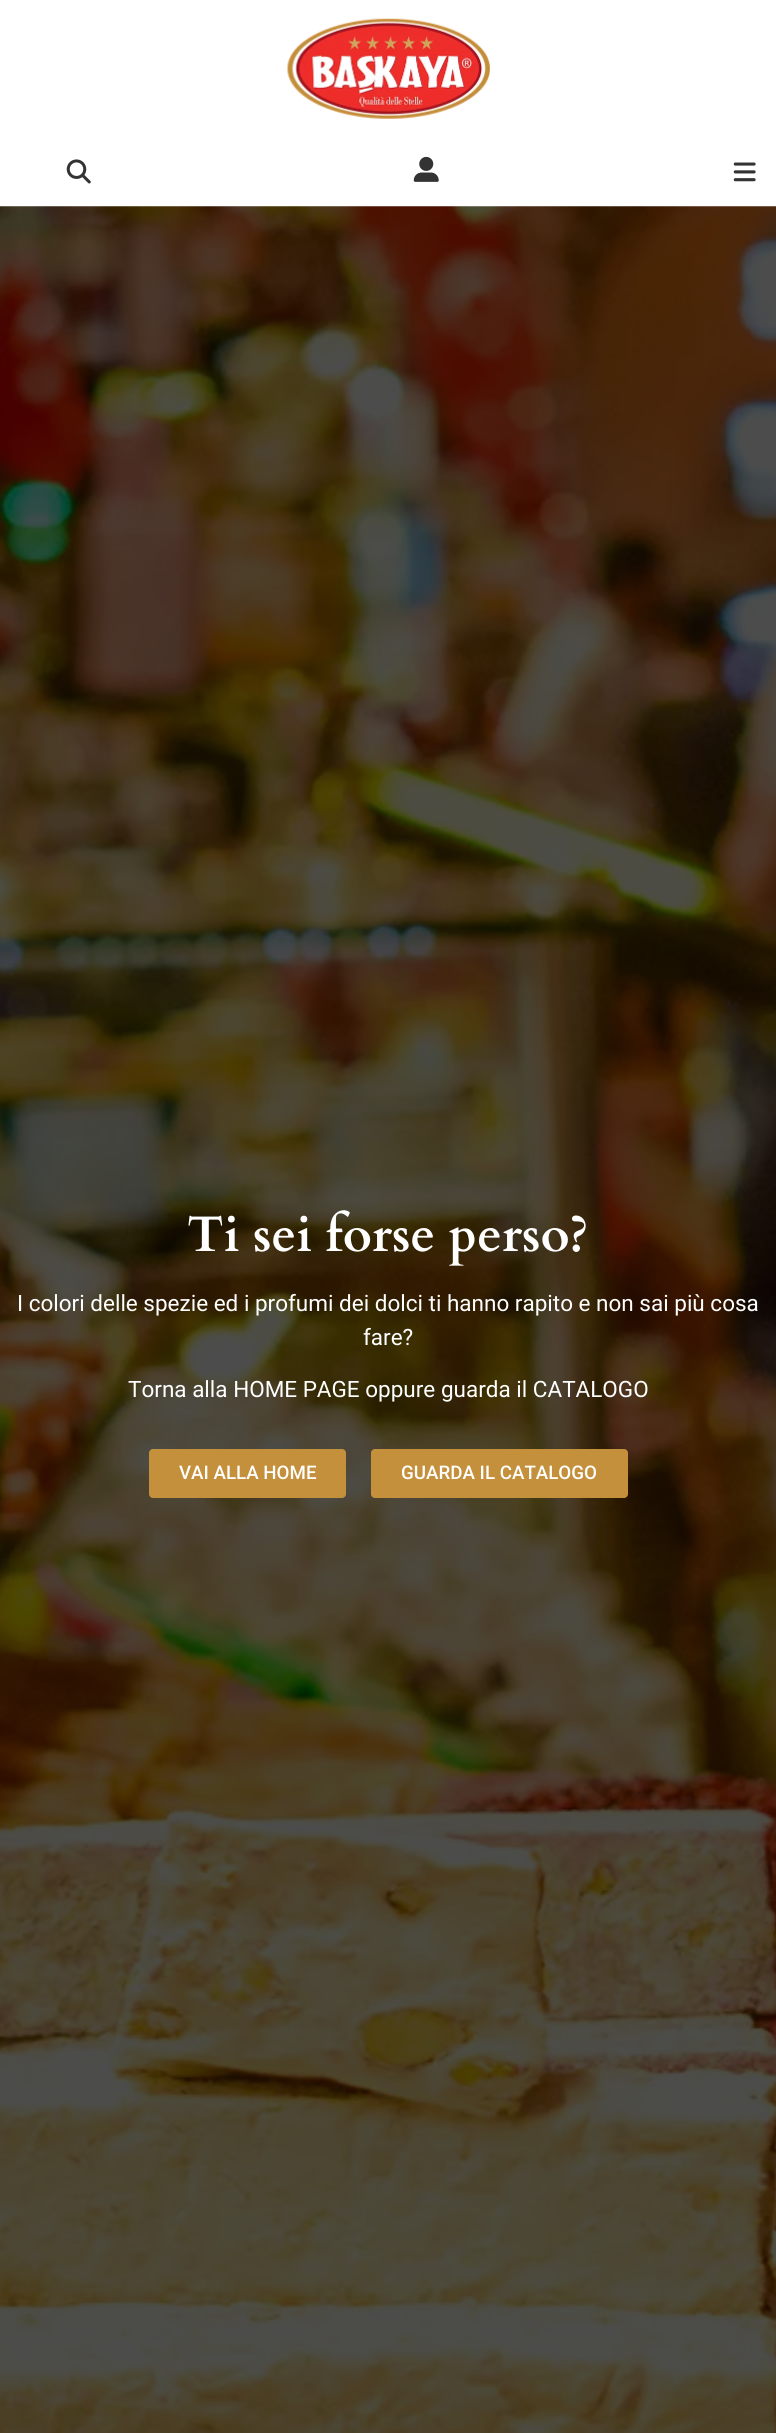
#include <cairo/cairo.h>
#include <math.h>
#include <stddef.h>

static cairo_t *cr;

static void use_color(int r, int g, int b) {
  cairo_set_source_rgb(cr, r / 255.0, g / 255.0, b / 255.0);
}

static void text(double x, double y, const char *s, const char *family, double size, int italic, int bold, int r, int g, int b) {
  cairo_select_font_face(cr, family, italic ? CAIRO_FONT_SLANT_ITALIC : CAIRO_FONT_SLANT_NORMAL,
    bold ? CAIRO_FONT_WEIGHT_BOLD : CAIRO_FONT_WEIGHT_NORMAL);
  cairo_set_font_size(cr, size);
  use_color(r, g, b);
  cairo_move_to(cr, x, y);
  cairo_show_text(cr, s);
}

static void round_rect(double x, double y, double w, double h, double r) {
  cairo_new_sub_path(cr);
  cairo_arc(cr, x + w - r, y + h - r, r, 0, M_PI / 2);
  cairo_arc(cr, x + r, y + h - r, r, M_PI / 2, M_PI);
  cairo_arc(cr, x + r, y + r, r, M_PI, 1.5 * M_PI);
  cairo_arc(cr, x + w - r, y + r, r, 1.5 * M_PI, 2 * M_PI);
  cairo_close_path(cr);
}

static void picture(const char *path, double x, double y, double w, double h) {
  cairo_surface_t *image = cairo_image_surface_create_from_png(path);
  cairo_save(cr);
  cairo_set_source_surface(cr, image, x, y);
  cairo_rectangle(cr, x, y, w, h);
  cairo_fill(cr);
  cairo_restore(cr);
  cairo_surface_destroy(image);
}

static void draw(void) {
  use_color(255, 255, 255);
  cairo_paint(cr);
  picture("img_01.png", 287, 18, 203, 101);
  picture("img_02.png", 66, 159, 25, 25);
  picture("img_03.png", 413, 156, 26, 26);
  picture("img_04.png", 733, 162, 23, 20);
  picture("img_05.png", 0, 206, 776, 2227);
  use_color(196, 144, 59);
  round_rect(149, 1449, 197, 49, 4);
  cairo_fill(cr);
  round_rect(371, 1449, 257, 49, 4);
  cairo_fill(cr);
  text(187, 1251, "Ti sei forse perso?", "Cardo", 50, 0, 1, 255, 255, 255);
  text(17, 1311, "I colori delle spezie ed i profumi dei dolci ti hanno rapito e non sai più cosa", "Roboto", 22.5, 0, 0, 255, 255, 255);
  text(363, 1345, "fare?", "Roboto", 22.5, 0, 0, 255, 255, 255);
  text(128, 1397, "Torna alla HOME PAGE oppure guarda il CATALOGO", "Roboto", 22.5, 0, 0, 255, 255, 255);
  text(179, 1479, "VAI ALLA HOME", "Roboto Medium", 18.75, 0, 0, 255, 255, 255);
  text(401, 1479, "GUARDA IL CATALOGO", "Roboto Medium", 18.75, 0, 0, 255, 255, 255);
}

int main(void) {
  cairo_surface_t *surface = cairo_image_surface_create(CAIRO_FORMAT_RGB24, 776, 2433);
  cr = cairo_create(surface);
  cairo_font_options_t *options = cairo_font_options_create();
  cairo_font_options_set_hint_metrics(options, CAIRO_HINT_METRICS_OFF);
  cairo_font_options_set_hint_style(options, CAIRO_HINT_STYLE_NONE);
  cairo_set_font_options(cr, options);
  cairo_set_miter_limit(cr, 4);
  draw();
  cairo_surface_write_to_png(surface, "out.png");
  cairo_font_options_destroy(options);
  cairo_destroy(cr);
  cairo_surface_destroy(surface);
  return 0;
}
